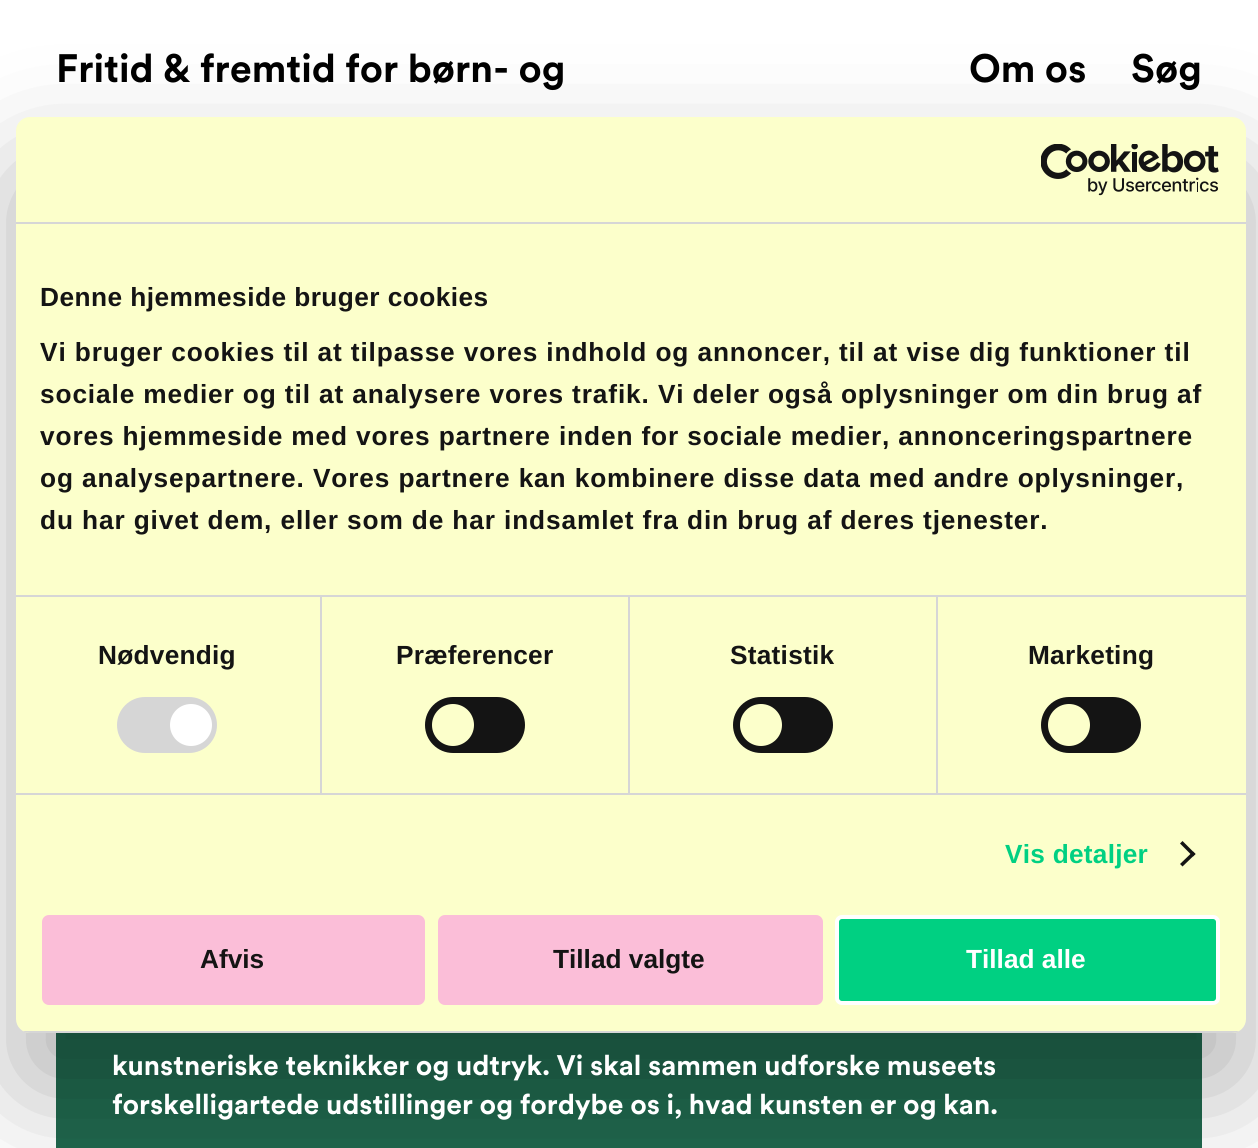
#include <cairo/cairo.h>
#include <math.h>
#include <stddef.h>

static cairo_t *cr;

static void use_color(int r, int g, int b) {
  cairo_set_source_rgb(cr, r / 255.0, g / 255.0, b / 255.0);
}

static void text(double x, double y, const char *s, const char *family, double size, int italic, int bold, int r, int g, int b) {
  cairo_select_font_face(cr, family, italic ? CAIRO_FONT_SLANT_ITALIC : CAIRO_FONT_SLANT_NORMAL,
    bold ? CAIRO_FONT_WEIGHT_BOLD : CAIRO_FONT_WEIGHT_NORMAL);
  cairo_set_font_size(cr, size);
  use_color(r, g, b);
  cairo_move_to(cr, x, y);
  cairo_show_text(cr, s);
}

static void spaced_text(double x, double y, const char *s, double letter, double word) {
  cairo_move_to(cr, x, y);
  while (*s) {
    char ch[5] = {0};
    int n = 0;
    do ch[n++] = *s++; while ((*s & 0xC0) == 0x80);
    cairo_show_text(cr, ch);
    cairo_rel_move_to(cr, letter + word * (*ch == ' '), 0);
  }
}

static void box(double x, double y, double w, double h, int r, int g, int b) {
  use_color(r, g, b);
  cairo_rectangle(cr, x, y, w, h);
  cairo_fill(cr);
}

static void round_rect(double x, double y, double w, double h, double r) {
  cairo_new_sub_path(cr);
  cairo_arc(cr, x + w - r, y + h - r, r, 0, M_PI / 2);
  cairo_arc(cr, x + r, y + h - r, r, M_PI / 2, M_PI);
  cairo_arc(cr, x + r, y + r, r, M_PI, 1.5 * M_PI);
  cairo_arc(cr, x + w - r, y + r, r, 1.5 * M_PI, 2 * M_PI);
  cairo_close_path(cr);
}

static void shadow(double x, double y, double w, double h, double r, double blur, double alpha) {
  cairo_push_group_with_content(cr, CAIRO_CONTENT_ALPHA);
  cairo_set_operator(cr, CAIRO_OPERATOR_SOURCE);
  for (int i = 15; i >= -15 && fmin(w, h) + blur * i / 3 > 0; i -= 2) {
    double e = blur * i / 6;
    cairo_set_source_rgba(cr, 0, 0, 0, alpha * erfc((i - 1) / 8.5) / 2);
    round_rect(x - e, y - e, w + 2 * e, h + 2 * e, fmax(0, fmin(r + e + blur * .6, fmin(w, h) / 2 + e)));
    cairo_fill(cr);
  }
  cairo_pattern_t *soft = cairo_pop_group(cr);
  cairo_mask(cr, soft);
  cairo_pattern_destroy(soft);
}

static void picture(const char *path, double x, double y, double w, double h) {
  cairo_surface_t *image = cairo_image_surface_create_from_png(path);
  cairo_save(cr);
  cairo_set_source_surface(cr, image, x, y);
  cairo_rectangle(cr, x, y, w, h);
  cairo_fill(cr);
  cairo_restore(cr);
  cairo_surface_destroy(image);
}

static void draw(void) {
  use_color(255, 255, 255);
  cairo_paint(cr);
  box(56, 1033, 1146, 115, 32, 104, 78);
  use_color(0, 0, 0);
  shadow(16, 173, 1230, 916, 14, 59.5, 0.3);
  use_color(252, 255, 203);
  round_rect(16, 117, 1230, 916, 14);
  cairo_fill(cr);
  box(16, 222, 1230, 2, 214, 214, 214);
  picture("img_01.png", 1041, 144, 178, 52);
  box(16, 595, 1230, 2, 214, 214, 214);
  box(16, 793, 1230, 2, 214, 214, 214);
  box(320, 597, 2, 196, 214, 214, 214);
  round_rect(117, 697, 100, 56, 28);
  cairo_fill(cr);
  use_color(255, 255, 255);
  cairo_arc(cr, 191, 725, 21, 0, 2 * M_PI);
  cairo_fill(cr);
  box(628, 597, 2, 196, 214, 214, 214);
  use_color(20, 20, 20);
  round_rect(425, 697, 100, 56, 28);
  cairo_fill(cr);
  use_color(252, 255, 203);
  cairo_arc(cr, 453, 725, 21, 0, 2 * M_PI);
  cairo_fill(cr);
  box(936, 597, 2, 196, 214, 214, 214);
  use_color(20, 20, 20);
  round_rect(733, 697, 100, 56, 28);
  cairo_fill(cr);
  use_color(252, 255, 203);
  cairo_arc(cr, 761, 725, 21, 0, 2 * M_PI);
  cairo_fill(cr);
  use_color(20, 20, 20);
  round_rect(1041, 697, 100, 56, 28);
  cairo_fill(cr);
  use_color(252, 255, 203);
  cairo_arc(cr, 1069, 725, 21, 0, 2 * M_PI);
  cairo_fill(cr);
  use_color(20, 20, 20);
  cairo_new_path(cr);
  cairo_move_to(cr, 1182.5, 841);
  cairo_line_to(cr, 1195.5, 854);
  cairo_line_to(cr, 1193, 856.5);
  cairo_line_to(cr, 1180, 843.5);
  cairo_close_path(cr);
  cairo_fill(cr);
  cairo_new_path(cr);
  cairo_move_to(cr, 1193, 851.5);
  cairo_line_to(cr, 1195.5, 854);
  cairo_line_to(cr, 1182.5, 866.5);
  cairo_line_to(cr, 1180, 864);
  cairo_close_path(cr);
  cairo_fill(cr);
  cairo_save(cr);
  round_rect(16, 117, 1230, 916, 14);
  cairo_clip(cr);
  box(16, 1031, 1230, 2, 214, 214, 214);
  cairo_restore(cr);
  use_color(251, 190, 216);
  round_rect(44, 917, 379, 86, 5);
  cairo_fill_preserve(cr);
  cairo_set_line_width(cr, 4);
  cairo_stroke(cr);
  round_rect(440, 917, 381, 86, 5);
  cairo_fill_preserve(cr);
  cairo_stroke(cr);
  use_color(0, 208, 130);
  round_rect(837, 917, 381, 86, 5);
  cairo_fill_preserve(cr);
  use_color(255, 255, 255);
  cairo_stroke(cr);
  text(56, 82, "Fritid & fremtid for børn- og", "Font", 39.25, 0, 1, 0, 0, 0);
  text(969, 82, "Om os", "Font", 39.25, 0, 1, 0, 0, 0);
  text(1131, 82, "Søg", "Font", 39.25, 0, 1, 0, 0, 0);
  cairo_select_font_face(cr, "Liberation Sans", CAIRO_FONT_SLANT_NORMAL, CAIRO_FONT_WEIGHT_BOLD);
  cairo_set_font_size(cr, 26.25);
  use_color(20, 20, 20);
  spaced_text(40, 306, "Denne hjemmeside bruger cookies", 0.45, 0);
  spaced_text(40, 361, "Vi bruger cookies til at tilpasse vores indhold og annoncer, til at vise dig funktioner til", 0.88, 0);
  spaced_text(40, 403, "sociale medier og til at analysere vores trafik. Vi deler også oplysninger om din brug af", 0.88, 0);
  spaced_text(40, 445, "vores hjemmeside med vores partnere inden for sociale medier, annonceringspartnere", 0.88, 0);
  spaced_text(40, 487, "og analysepartnere. Vores partnere kan kombinere disse data med andre oplysninger,", 0.88, 0);
  spaced_text(40, 529, "du har givet dem, eller som de har indsamlet fra din brug af deres tjenester.", 0.88, 0);
  spaced_text(98, 664, "Nødvendig", 0.25, 0);
  spaced_text(396, 664, "Præferencer", 0.25, 0);
  spaced_text(730, 664, "Statistik", 0.25, 0);
  spaced_text(1028, 664, "Marketing", 0.25, 0);
  use_color(0, 208, 130);
  spaced_text(1005, 863, "Vis detaljer", 0.25, 0);
  text(200, 968, "Afvis", "Liberation Sans", 26.25, 0, 1, 20, 20, 20);
  text(553, 968, "Tillad valgte", "Liberation Sans", 26.25, 0, 1, 20, 20, 20);
  text(966, 968, "Tillad alle", "Liberation Sans", 26.25, 0, 1, 255, 255, 255);
  text(112, 1075, "kunstneriske teknikker og udtryk. Vi skal sammen udforske museets", "Font", 28, 0, 1, 255, 255, 255);
  text(112, 1114, "forskelligartede udstillinger og fordybe os i, hvad kunsten er og kan.", "Font", 28, 0, 1, 255, 255, 255);
}

int main(void) {
  cairo_surface_t *surface = cairo_image_surface_create(CAIRO_FORMAT_RGB24, 1258, 1148);
  cr = cairo_create(surface);
  cairo_font_options_t *options = cairo_font_options_create();
  cairo_font_options_set_hint_metrics(options, CAIRO_HINT_METRICS_OFF);
  cairo_font_options_set_hint_style(options, CAIRO_HINT_STYLE_NONE);
  cairo_set_font_options(cr, options);
  cairo_set_miter_limit(cr, 4);
  draw();
  cairo_surface_write_to_png(surface, "out.png");
  cairo_font_options_destroy(options);
  cairo_destroy(cr);
  cairo_surface_destroy(surface);
  return 0;
}
